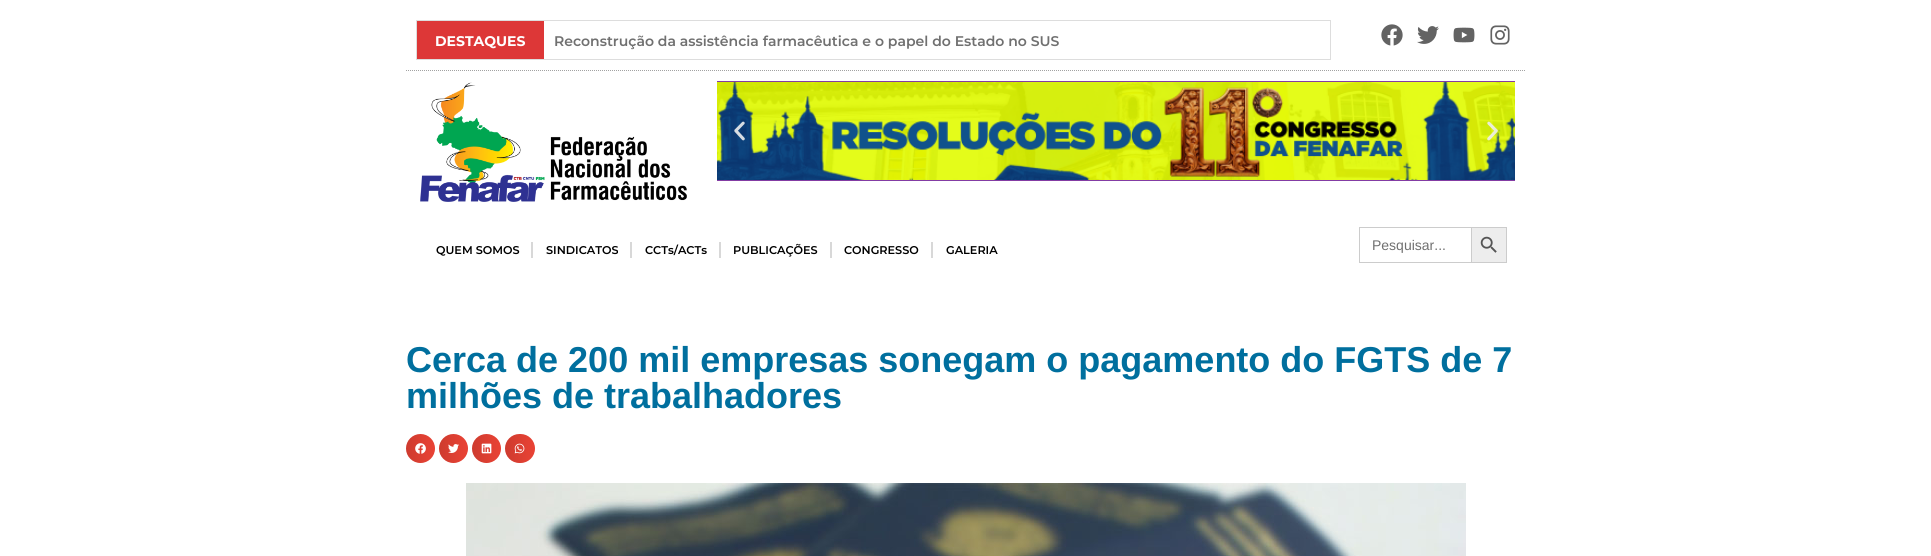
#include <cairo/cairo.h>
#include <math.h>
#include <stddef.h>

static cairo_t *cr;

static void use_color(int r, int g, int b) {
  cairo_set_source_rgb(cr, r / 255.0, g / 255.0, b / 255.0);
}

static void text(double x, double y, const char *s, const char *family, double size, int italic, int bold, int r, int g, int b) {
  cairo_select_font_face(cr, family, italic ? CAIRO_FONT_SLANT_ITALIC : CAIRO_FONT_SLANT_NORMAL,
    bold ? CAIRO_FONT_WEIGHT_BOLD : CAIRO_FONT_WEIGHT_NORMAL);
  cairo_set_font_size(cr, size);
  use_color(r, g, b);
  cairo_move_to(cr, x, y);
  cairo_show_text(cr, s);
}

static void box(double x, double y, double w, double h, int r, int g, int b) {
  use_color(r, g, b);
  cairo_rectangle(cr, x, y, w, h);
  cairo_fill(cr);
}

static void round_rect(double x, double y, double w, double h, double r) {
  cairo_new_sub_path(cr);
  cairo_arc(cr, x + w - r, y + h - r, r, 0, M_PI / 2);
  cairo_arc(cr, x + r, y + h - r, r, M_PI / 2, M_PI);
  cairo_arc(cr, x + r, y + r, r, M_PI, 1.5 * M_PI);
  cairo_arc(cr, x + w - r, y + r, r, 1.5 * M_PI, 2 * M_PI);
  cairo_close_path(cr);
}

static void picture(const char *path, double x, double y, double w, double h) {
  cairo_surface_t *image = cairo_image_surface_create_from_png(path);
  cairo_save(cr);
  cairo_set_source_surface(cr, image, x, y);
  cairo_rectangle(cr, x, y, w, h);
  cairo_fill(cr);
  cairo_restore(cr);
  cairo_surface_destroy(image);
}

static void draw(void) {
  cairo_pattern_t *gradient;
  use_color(255, 255, 255);
  cairo_paint(cr);
  cairo_new_path(cr);
  cairo_move_to(cr, 406, 70.5);
  cairo_line_to(cr, 1526, 70.5);
  use_color(162, 162, 162);
  cairo_set_line_width(cr, 1);
  cairo_set_dash(cr, (double[]){1, 1}, 2, 0);
  cairo_stroke(cr);
  cairo_rectangle(cr, 416.5, 20.5, 914, 39);
  use_color(221, 221, 221);
  cairo_set_dash(cr, NULL, 0, 0);
  cairo_stroke(cr);
  box(417, 21, 127, 38, 221, 55, 55);
  picture("img_01.png", 1381, 24, 22, 22);
  picture("img_02.png", 1417, 26, 22, 18);
  picture("img_03.png", 1453, 27, 22, 16);
  picture("img_04.png", 1490, 25, 20, 20);
  picture("img_05.png", 420, 82, 267, 120);
  box(717, 81, 798, 100, 131, 60, 163);
  picture("img_06.png", 717, 82, 798, 98);
  picture("img_07.png", 734, 121, 11, 20);
  picture("img_08.png", 1487, 121, 11, 20);
  box(531, 242, 2, 16, 216, 216, 216);
  box(630, 242, 2, 16, 216, 216, 216);
  box(719, 242, 2, 16, 216, 216, 216);
  box(830, 242, 2, 16, 216, 216, 216);
  box(931, 242, 2, 16, 216, 216, 216);
  box(1359, 227, 112, 1, 204, 204, 204);
  box(1359, 262, 112, 1, 204, 204, 204);
  box(1359, 227, 1, 36, 204, 204, 204);
  use_color(237, 237, 237);
  cairo_rectangle(cr, 1471.5, 227.5, 35, 35);
  cairo_fill_preserve(cr);
  use_color(204, 204, 204);
  cairo_stroke(cr);
  picture("img_09.png", 1480, 236, 17, 17);
  use_color(234, 67, 53);
  cairo_arc(cr, 420.5, 448.5, 14.5, 0, 2 * M_PI);
  cairo_fill(cr);
  gradient = cairo_pattern_create_linear(406, 449, 435, 449);
  cairo_pattern_add_color_stop_rgba(gradient, 0, 0, 0, 0, 0.12);
  cairo_pattern_add_color_stop_rgba(gradient, 1, 0, 0, 0, 0);
  cairo_set_source(cr, gradient);
  cairo_pattern_destroy(gradient);
  cairo_arc(cr, 420.5, 448.5, 14.5, 0, 2 * M_PI);
  cairo_fill(cr);
  picture("img_10.png", 415, 443, 11, 11);
  use_color(234, 67, 53);
  cairo_arc(cr, 453.5, 448.5, 14.5, 0, 2 * M_PI);
  cairo_fill(cr);
  gradient = cairo_pattern_create_linear(439, 449, 468, 449);
  cairo_pattern_add_color_stop_rgba(gradient, 0, 0, 0, 0, 0.12);
  cairo_pattern_add_color_stop_rgba(gradient, 1, 0, 0, 0, 0);
  cairo_set_source(cr, gradient);
  cairo_pattern_destroy(gradient);
  cairo_arc(cr, 453.5, 448.5, 14.5, 0, 2 * M_PI);
  cairo_fill(cr);
  picture("img_11.png", 448, 444, 11, 9);
  use_color(234, 67, 53);
  cairo_arc(cr, 486.5, 448.5, 14.5, 0, 2 * M_PI);
  cairo_fill(cr);
  gradient = cairo_pattern_create_linear(472, 449, 501, 449);
  cairo_pattern_add_color_stop_rgba(gradient, 0, 0, 0, 0, 0.12);
  cairo_pattern_add_color_stop_rgba(gradient, 1, 0, 0, 0, 0);
  cairo_set_source(cr, gradient);
  cairo_pattern_destroy(gradient);
  cairo_arc(cr, 486.5, 448.5, 14.5, 0, 2 * M_PI);
  cairo_fill(cr);
  picture("img_12.png", 481, 443, 11, 11);
  use_color(234, 67, 53);
  round_rect(505, 434, 30, 29, 14.5);
  cairo_fill(cr);
  gradient = cairo_pattern_create_linear(505, 449, 535, 449);
  cairo_pattern_add_color_stop_rgba(gradient, 0, 0, 0, 0, 0.12);
  cairo_pattern_add_color_stop_rgba(gradient, 1, 0, 0, 0, 0);
  cairo_set_source(cr, gradient);
  cairo_pattern_destroy(gradient);
  round_rect(505, 434, 30, 29, 14.5);
  cairo_fill(cr);
  picture("img_13.png", 514, 443, 11, 11);
  picture("img_14.png", 466, 483, 1000, 73);
  text(435, 46, "DESTAQUES", "Montserrat", 14, 0, 1, 255, 255, 255);
  text(554, 46, "Reconstrução da assistência farmacêutica e o papel do Estado no SUS", "Montserrat SemiBold", 14, 0, 0, 112, 112, 112);
  text(436, 254, "QUEM SOMOS", "Montserrat SemiBold", 11.25, 0, 0, 0, 0, 0);
  text(546, 254, "SINDICATOS", "Montserrat SemiBold", 11.25, 0, 0, 0, 0, 0);
  text(645, 254, "CCTs/ACTs", "Montserrat SemiBold", 11.25, 0, 0, 0, 0, 0);
  text(733, 254, "PUBLICAÇÕES", "Montserrat SemiBold", 11.25, 0, 0, 0, 0, 0);
  text(844, 254, "CONGRESSO", "Montserrat SemiBold", 11.25, 0, 0, 0, 0, 0);
  text(946, 254, "GALERIA", "Montserrat SemiBold", 11.25, 0, 0, 0, 0, 0);
  text(1372, 250, "Pesquisar...", "Liberation Sans", 14, 0, 0, 112, 112, 112);
  text(406, 372, "Cerca de 200 mil empresas sonegam o pagamento do FGTS de 7", "Liberation Sans", 36, 0, 1, 0, 111, 158);
  text(406, 408, "milhões de trabalhadores", "Liberation Sans", 36, 0, 1, 0, 111, 158);
}

int main(void) {
  cairo_surface_t *surface = cairo_image_surface_create(CAIRO_FORMAT_RGB24, 1931, 556);
  cr = cairo_create(surface);
  cairo_font_options_t *options = cairo_font_options_create();
  cairo_font_options_set_hint_metrics(options, CAIRO_HINT_METRICS_OFF);
  cairo_font_options_set_hint_style(options, CAIRO_HINT_STYLE_NONE);
  cairo_set_font_options(cr, options);
  cairo_set_miter_limit(cr, 4);
  draw();
  cairo_surface_write_to_png(surface, "out.png");
  cairo_font_options_destroy(options);
  cairo_destroy(cr);
  cairo_surface_destroy(surface);
  return 0;
}
